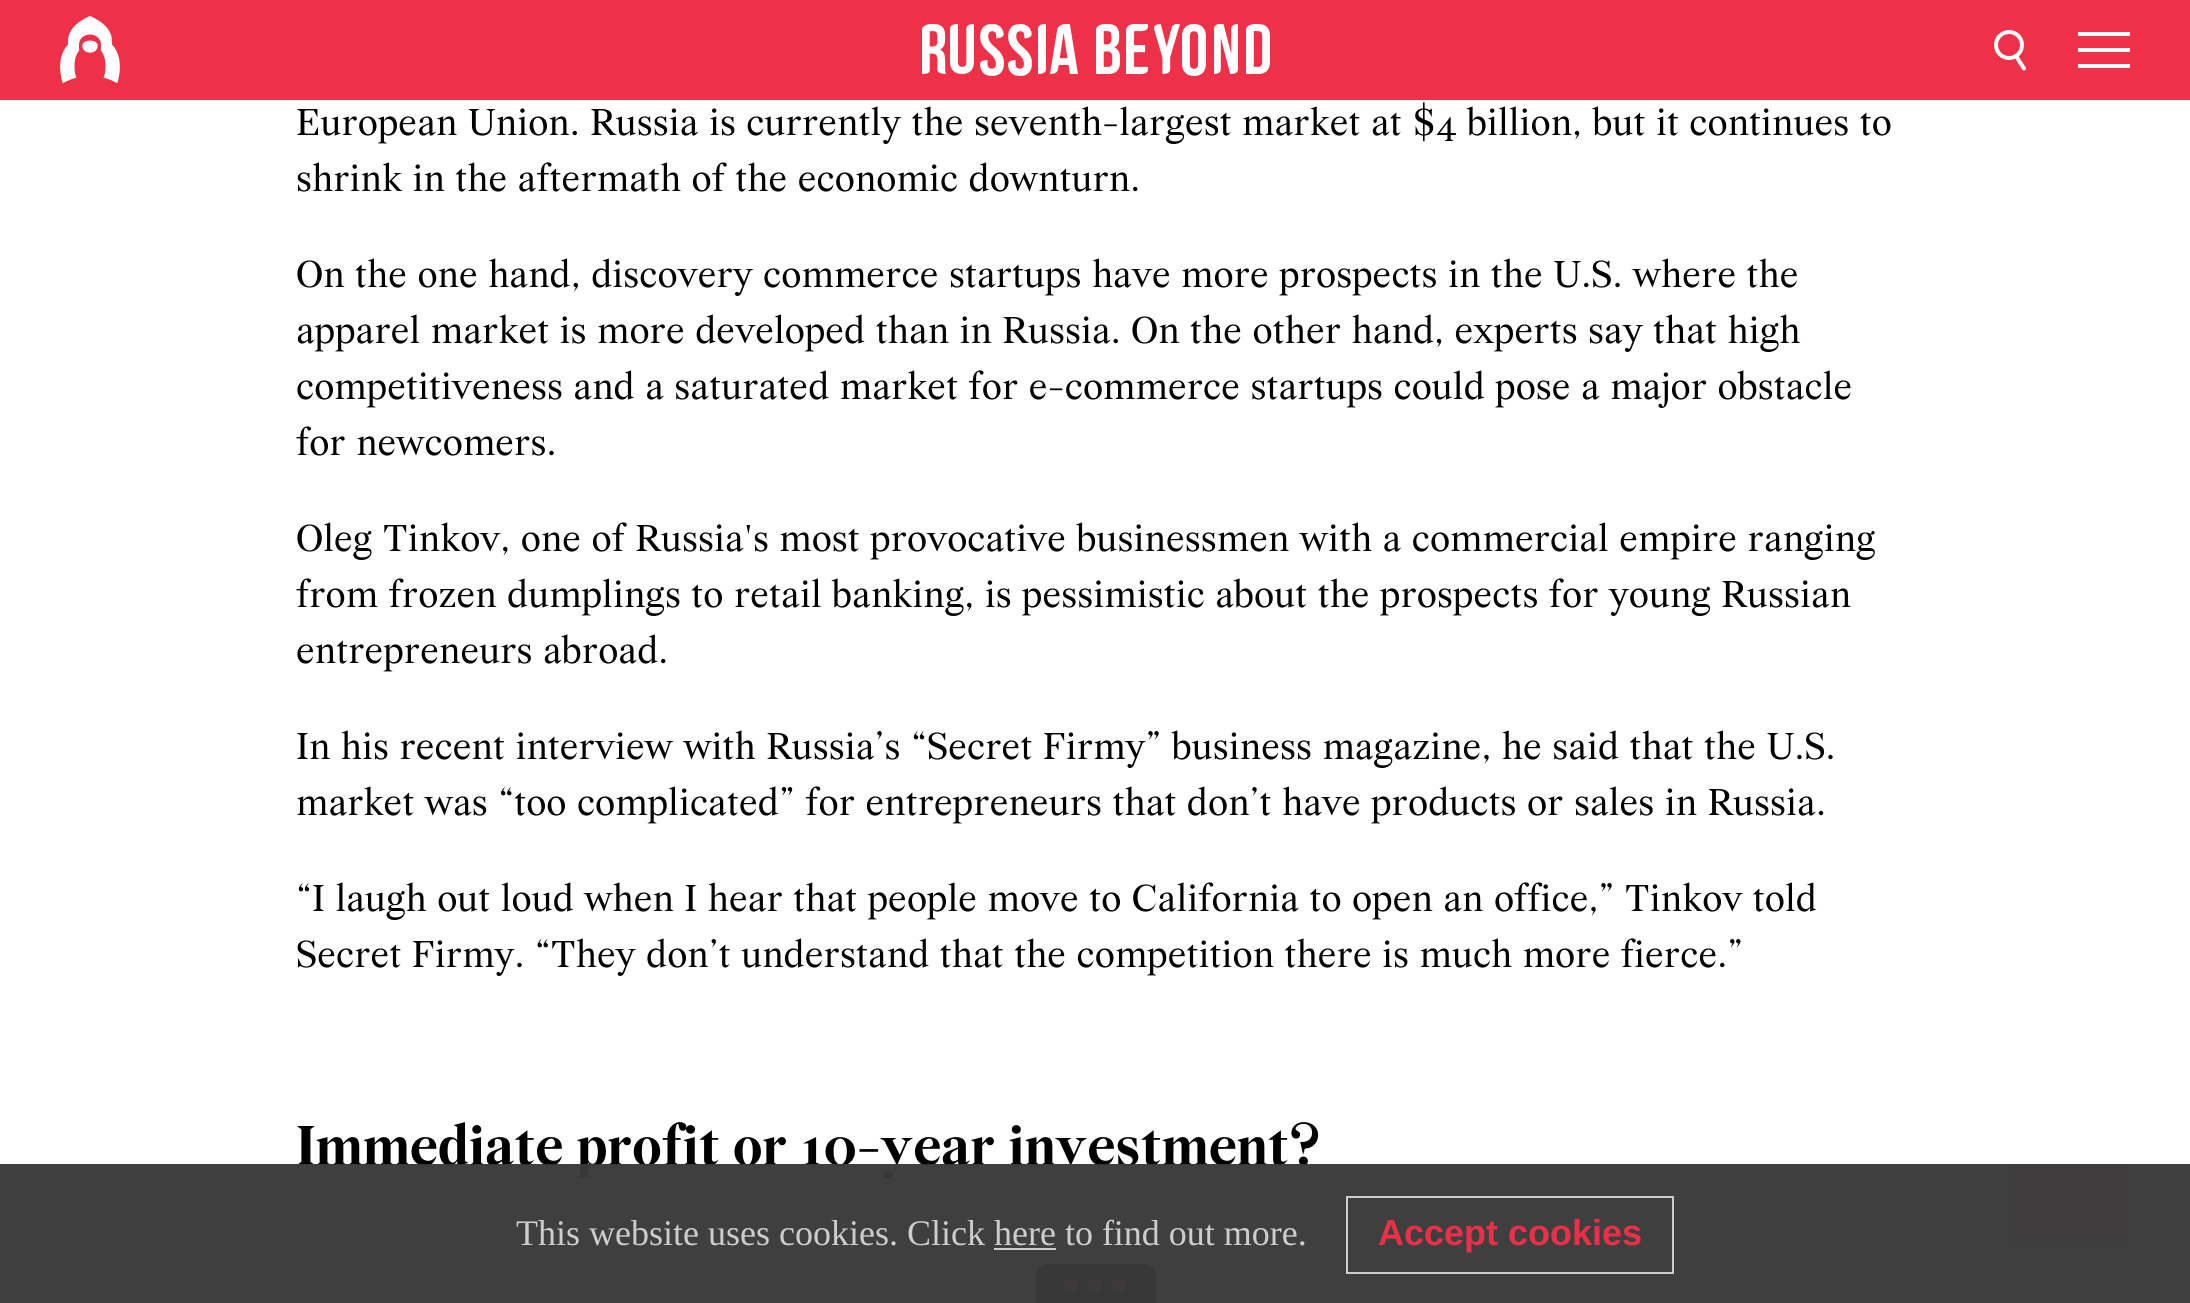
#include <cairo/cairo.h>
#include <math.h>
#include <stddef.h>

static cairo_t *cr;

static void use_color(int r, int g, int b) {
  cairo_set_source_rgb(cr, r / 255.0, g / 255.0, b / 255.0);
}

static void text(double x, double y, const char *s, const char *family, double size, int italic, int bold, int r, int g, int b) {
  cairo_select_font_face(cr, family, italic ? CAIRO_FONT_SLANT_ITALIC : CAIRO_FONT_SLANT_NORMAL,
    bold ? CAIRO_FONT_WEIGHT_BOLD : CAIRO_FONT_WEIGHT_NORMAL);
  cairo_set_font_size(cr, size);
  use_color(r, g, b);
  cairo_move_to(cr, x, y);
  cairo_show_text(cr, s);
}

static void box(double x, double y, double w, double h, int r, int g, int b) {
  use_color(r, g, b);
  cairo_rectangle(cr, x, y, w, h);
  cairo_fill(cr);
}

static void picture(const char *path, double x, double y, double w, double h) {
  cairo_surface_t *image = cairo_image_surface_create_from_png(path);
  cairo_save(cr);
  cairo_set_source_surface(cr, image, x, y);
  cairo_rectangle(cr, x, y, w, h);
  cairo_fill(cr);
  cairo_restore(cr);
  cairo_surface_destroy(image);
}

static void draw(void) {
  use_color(255, 255, 255);
  cairo_paint(cr);
  box(0, 0, 2190, 100, 238, 48, 72);
  picture("img_01.png", 60, 16, 60, 68);
  picture("img_02.png", 922, 24, 348, 52);
  cairo_arc(cr, 2009, 45, 13, 0, 2 * M_PI);
  use_color(255, 255, 255);
  cairo_set_line_width(cr, 4);
  cairo_stroke(cr);
  cairo_new_path(cr);
  cairo_move_to(cr, 2016, 56);
  cairo_line_to(cr, 2024, 68.5);
  cairo_set_line_cap(cr, CAIRO_LINE_CAP_ROUND);
  cairo_stroke(cr);
  cairo_set_fill_rule(cr, CAIRO_FILL_RULE_EVEN_ODD);
  cairo_new_path(cr);
  cairo_move_to(cr, 2078, 32);
  cairo_line_to(cr, 2130, 32);
  cairo_line_to(cr, 2130, 36);
  cairo_line_to(cr, 2078, 36);
  cairo_close_path(cr);
  cairo_move_to(cr, 2078, 48);
  cairo_line_to(cr, 2130, 48);
  cairo_line_to(cr, 2130, 52);
  cairo_line_to(cr, 2078, 52);
  cairo_close_path(cr);
  cairo_move_to(cr, 2078, 64);
  cairo_line_to(cr, 2130, 64);
  cairo_line_to(cr, 2130, 68);
  cairo_line_to(cr, 2078, 68);
  cairo_close_path(cr);
  cairo_fill(cr);
  box(2010, 1164, 120, 80, 250, 193, 200);
  use_color(0, 0, 0);
  cairo_new_path(cr);
  cairo_move_to(cr, 1048, 1264);
  cairo_line_to(cr, 1144, 1264);
  cairo_curve_to(cr, 1150.5, 1264, 1156, 1269.5, 1156, 1276);
  cairo_line_to(cr, 1156, 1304);
  cairo_line_to(cr, 1036, 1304);
  cairo_line_to(cr, 1036, 1276);
  cairo_curve_to(cr, 1036, 1269.5, 1041.5, 1264, 1048, 1264);
  cairo_close_path(cr);
  cairo_fill(cr);
  use_color(238, 48, 72);
  cairo_arc(cr, 1071, 1285, 7, 0, 2 * M_PI);
  cairo_fill(cr);
  cairo_arc(cr, 1095, 1285, 7, 0, 2 * M_PI);
  cairo_fill(cr);
  cairo_arc(cr, 1119, 1285, 7, 0, 2 * M_PI);
  cairo_fill(cr);
  text(296, 135, "European Union. Russia is currently the seventh-largest market at $4 billion, but it continues to", "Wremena", 40, 0, 0, 0, 0, 0);
  text(296, 191, "shrink in the aftermath of the economic downturn.", "Wremena", 40, 0, 0, 0, 0, 0);
  text(296, 287, "On the one hand, discovery commerce startups have more prospects in the U.S. where the", "Wremena", 40, 0, 0, 0, 0, 0);
  text(296, 343, "apparel market is more developed than in Russia. On the other hand, experts say that high", "Wremena", 40, 0, 0, 0, 0, 0);
  text(296, 399, "competitiveness and a saturated market for e-commerce startups could pose a major obstacle", "Wremena", 40, 0, 0, 0, 0, 0);
  text(296, 455, "for newcomers.", "Wremena", 40, 0, 0, 0, 0, 0);
  text(296, 551, "Oleg Tinkov, one of Russia's most provocative businessmen with a commercial empire ranging", "Wremena", 40, 0, 0, 0, 0, 0);
  text(296, 607, "from frozen dumplings to retail banking, is pessimistic about the prospects for young Russian", "Wremena", 40, 0, 0, 0, 0, 0);
  text(296, 663, "entrepreneurs abroad.", "Wremena", 40, 0, 0, 0, 0, 0);
  text(296, 759, "In his recent interview with Russia’s “Secret Firmy” business magazine, he said that the U.S.", "Wremena", 40, 0, 0, 0, 0, 0);
  text(296, 815, "market was “too complicated” for entrepreneurs that don’t have products or sales in Russia.", "Wremena", 40, 0, 0, 0, 0, 0);
  text(296, 911, "“I laugh out loud when I hear that people move to California to open an office,” Tinkov told", "Wremena", 40, 0, 0, 0, 0, 0);
  text(296, 967, "Secret Firmy. “They don’t understand that the competition there is much more fierce.”", "Wremena", 40, 0, 0, 0, 0, 0);
  text(296, 1165, "Immediate profit or 10-year investment?", "Wremena", 60, 0, 1, 0, 0, 0);
  cairo_set_source_rgba(cr, 0.227, 0.227, 0.227, 0.97);
  cairo_rectangle(cr, 0, 1164, 2190, 139);
  cairo_fill(cr);
  text(516, 1245, "This website uses cookies. Click here to find out more.", "Liberation Serif", 36, 0, 0, 205, 205, 205);
  cairo_set_source_rgba(cr, 0.82, 0.82, 0.82, 0.97);
  cairo_rectangle(cr, 994, 1248, 62, 2);
  cairo_fill(cr);
  cairo_rectangle(cr, 1347, 1197, 326, 76);
  cairo_set_line_width(cr, 2);
  cairo_set_line_cap(cr, CAIRO_LINE_CAP_BUTT);
  cairo_stroke(cr);
  text(1378, 1245, "Accept cookies", "Liberation Sans", 36, 0, 1, 233, 48, 72);
}

int main(void) {
  cairo_surface_t *surface = cairo_image_surface_create(CAIRO_FORMAT_RGB24, 2190, 1303);
  cr = cairo_create(surface);
  cairo_font_options_t *options = cairo_font_options_create();
  cairo_font_options_set_hint_metrics(options, CAIRO_HINT_METRICS_OFF);
  cairo_font_options_set_hint_style(options, CAIRO_HINT_STYLE_NONE);
  cairo_set_font_options(cr, options);
  cairo_set_miter_limit(cr, 4);
  draw();
  cairo_surface_write_to_png(surface, "out.png");
  cairo_font_options_destroy(options);
  cairo_destroy(cr);
  cairo_surface_destroy(surface);
  return 0;
}
